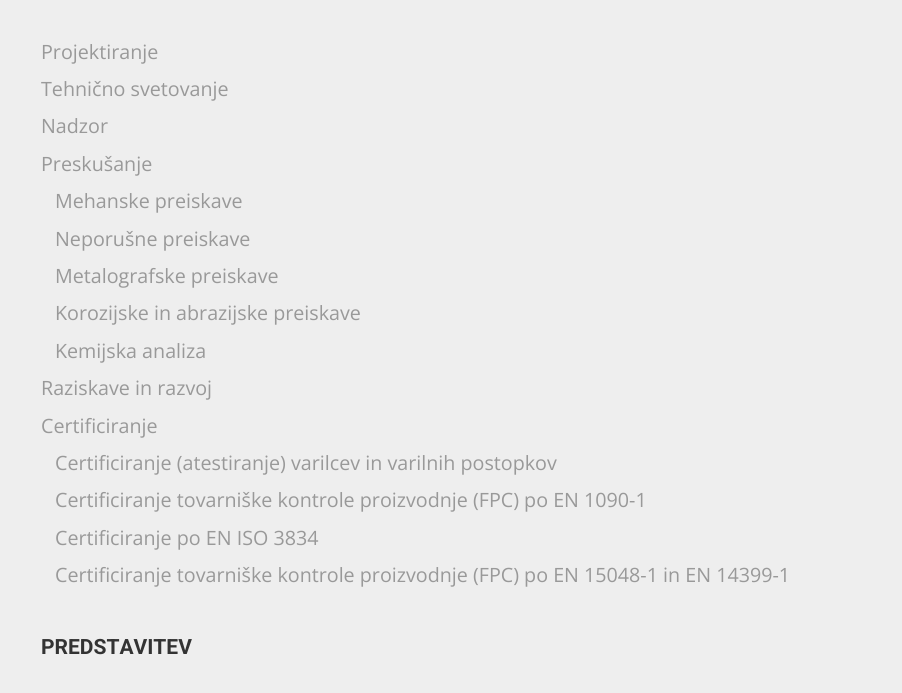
#include <cairo/cairo.h>
#include <math.h>
#include <stddef.h>

static cairo_t *cr;

static void use_color(int r, int g, int b) {
  cairo_set_source_rgb(cr, r / 255.0, g / 255.0, b / 255.0);
}

static void text(double x, double y, const char *s, const char *family, double size, int italic, int bold, int r, int g, int b) {
  cairo_select_font_face(cr, family, italic ? CAIRO_FONT_SLANT_ITALIC : CAIRO_FONT_SLANT_NORMAL,
    bold ? CAIRO_FONT_WEIGHT_BOLD : CAIRO_FONT_WEIGHT_NORMAL);
  cairo_set_font_size(cr, size);
  use_color(r, g, b);
  cairo_move_to(cr, x, y);
  cairo_show_text(cr, s);
}

static void draw(void) {
  use_color(238, 238, 238);
  cairo_paint(cr);
  text(41, 59, "Projektiranje", "Open Sans", 19.7, 0, 0, 153, 153, 153);
  text(41, 96, "Tehnično svetovanje", "Open Sans", 19.7, 0, 0, 153, 153, 153);
  text(41, 133, "Nadzor", "Open Sans", 19.7, 0, 0, 153, 153, 153);
  text(41, 171, "Preskušanje", "Open Sans", 19.7, 0, 0, 153, 153, 153);
  text(55, 208, "Mehanske preiskave", "Open Sans", 19.7, 0, 0, 153, 153, 153);
  text(55, 246, "Neporušne preiskave", "Open Sans", 19.7, 0, 0, 153, 153, 153);
  text(55, 283, "Metalografske preiskave", "Open Sans", 19.7, 0, 0, 153, 153, 153);
  text(55, 320, "Korozijske in abrazijske preiskave", "Open Sans", 19.7, 0, 0, 153, 153, 153);
  text(55, 358, "Kemijska analiza", "Open Sans", 19.7, 0, 0, 153, 153, 153);
  text(41, 395, "Raziskave in razvoj", "Open Sans", 19.7, 0, 0, 153, 153, 153);
  text(41, 433, "Certificiranje", "Open Sans", 19.7, 0, 0, 153, 153, 153);
  text(55, 470, "Certificiranje (atestiranje) varilcev in varilnih postopkov", "Open Sans", 19.7, 0, 0, 153, 153, 153);
  text(55, 507, "Certificiranje tovarniške kontrole proizvodnje (FPC) po EN 1090-1", "Open Sans", 19.7, 0, 0, 153, 153, 153);
  text(55, 545, "Certificiranje po EN ISO 3834", "Open Sans", 19.7, 0, 0, 153, 153, 153);
  text(55, 582, "Certificiranje tovarniške kontrole proizvodnje (FPC) po EN 15048-1 in EN 14399-1", "Open Sans", 19.7, 0, 0, 153, 153, 153);
  text(41, 654, "PREDSTAVITEV", "Roboto", 21, 0, 1, 51, 51, 51);
}

int main(void) {
  cairo_surface_t *surface = cairo_image_surface_create(CAIRO_FORMAT_RGB24, 902, 693);
  cr = cairo_create(surface);
  cairo_font_options_t *options = cairo_font_options_create();
  cairo_font_options_set_hint_metrics(options, CAIRO_HINT_METRICS_OFF);
  cairo_font_options_set_hint_style(options, CAIRO_HINT_STYLE_NONE);
  cairo_set_font_options(cr, options);
  cairo_set_miter_limit(cr, 4);
  draw();
  cairo_surface_write_to_png(surface, "out.png");
  cairo_font_options_destroy(options);
  cairo_destroy(cr);
  cairo_surface_destroy(surface);
  return 0;
}
